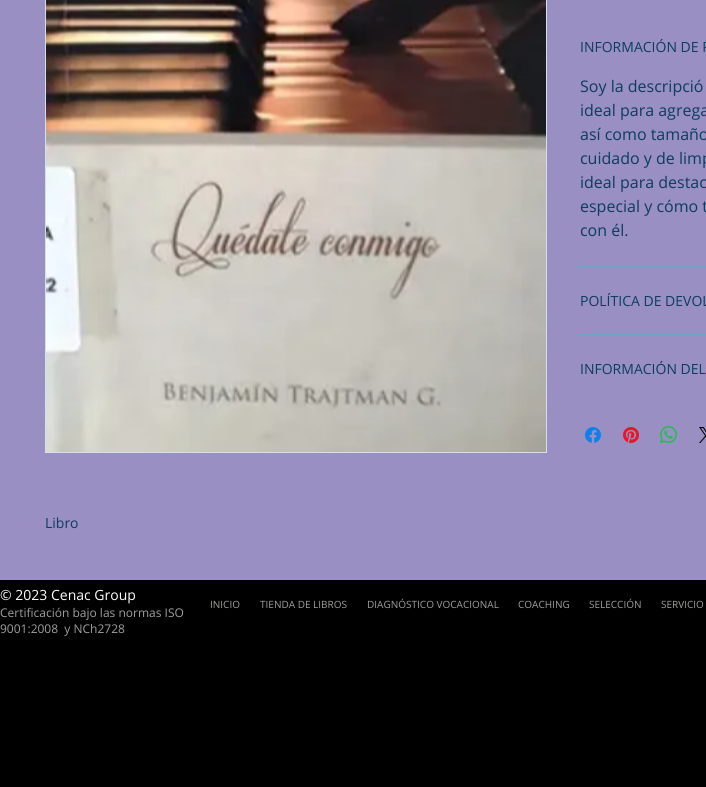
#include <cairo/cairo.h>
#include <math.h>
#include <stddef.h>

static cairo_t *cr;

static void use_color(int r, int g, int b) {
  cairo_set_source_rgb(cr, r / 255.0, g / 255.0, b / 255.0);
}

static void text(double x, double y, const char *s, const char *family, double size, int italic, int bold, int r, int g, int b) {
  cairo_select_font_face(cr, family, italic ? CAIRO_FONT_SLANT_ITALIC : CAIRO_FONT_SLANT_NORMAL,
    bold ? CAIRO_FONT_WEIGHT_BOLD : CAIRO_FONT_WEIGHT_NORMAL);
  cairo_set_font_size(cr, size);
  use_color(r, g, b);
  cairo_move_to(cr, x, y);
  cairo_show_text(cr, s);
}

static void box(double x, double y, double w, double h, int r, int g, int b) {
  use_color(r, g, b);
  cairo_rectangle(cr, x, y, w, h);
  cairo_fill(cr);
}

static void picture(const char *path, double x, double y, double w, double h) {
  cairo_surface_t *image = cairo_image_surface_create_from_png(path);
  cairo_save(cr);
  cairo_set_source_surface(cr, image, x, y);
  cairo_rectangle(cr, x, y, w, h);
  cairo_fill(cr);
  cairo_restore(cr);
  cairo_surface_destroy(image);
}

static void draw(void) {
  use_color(153, 143, 194);
  cairo_paint(cr);
  box(580, 266, 126, 1, 110, 164, 202);
  box(580, 334, 126, 1, 110, 164, 202);
  picture("img_01.png", 585, 427, 16, 16);
  picture("img_02.png", 623, 427, 16, 16);
  picture("img_03.png", 660, 426, 17, 17);
  picture("img_04.png", 699, 427, 7, 16);
  cairo_rectangle(cr, 45.5, -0.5, 501, 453);
  use_color(209, 224, 235);
  cairo_set_line_width(cr, 1);
  cairo_stroke(cr);
  picture("img_05.png", 46, 0, 500, 452);
  box(0, 580, 706, 207, 0, 0, 0);
  text(580, 52, "INFORMACIÓN DE P", "Open Sans", 14, 0, 0, 12, 60, 96);
  text(580, 92, "Soy la descripció", "Open Sans", 16, 0, 0, 12, 60, 96);
  text(580, 116, "ideal para agrega", "Open Sans", 16, 0, 0, 12, 60, 96);
  text(580, 140, "así como tamaño", "Open Sans", 16, 0, 0, 12, 60, 96);
  text(580, 164, "cuidado y de limp", "Open Sans", 16, 0, 0, 12, 60, 96);
  text(580, 188, "ideal para destac", "Open Sans", 16, 0, 0, 12, 60, 96);
  text(580, 212, "especial y cómo t", "Open Sans", 16, 0, 0, 12, 60, 96);
  text(580, 236, "con él.", "Open Sans", 16, 0, 0, 12, 60, 96);
  text(580, 306, "POLÍTICA DE DEVOL", "Open Sans", 14, 0, 0, 12, 60, 96);
  text(580, 374, "INFORMACIÓN DEL", "Open Sans", 14, 0, 0, 12, 60, 96);
  text(45, 528, "Libro", "Open Sans", 14, 0, 0, 12, 60, 96);
  text(0, 600, "© 2023 Cenac Group", "Open Sans", 14, 0, 0, 255, 255, 255);
  text(0, 617, "Certificación bajo las normas ISO", "Open Sans", 12, 0, 0, 160, 160, 159);
  text(0, 633, "9001:2008  y NCh2728", "Open Sans", 12, 0, 0, 160, 160, 159);
  text(210, 608, "INICIO", "Open Sans", 10, 0, 0, 160, 160, 159);
  text(260, 608, "TIENDA DE LIBROS", "Open Sans", 10, 0, 0, 160, 160, 159);
  text(367, 608, "DIAGNÓSTICO VOCACIONAL", "Open Sans", 10, 0, 0, 160, 160, 159);
  text(518, 608, "COACHING", "Open Sans", 10, 0, 0, 160, 160, 159);
  text(589, 608, "SELECCIÓN", "Open Sans", 10, 0, 0, 160, 160, 159);
  text(661, 608, "SERVICIO", "Open Sans", 10, 0, 0, 160, 160, 159);
}

int main(void) {
  cairo_surface_t *surface = cairo_image_surface_create(CAIRO_FORMAT_RGB24, 706, 787);
  cr = cairo_create(surface);
  cairo_font_options_t *options = cairo_font_options_create();
  cairo_font_options_set_hint_metrics(options, CAIRO_HINT_METRICS_OFF);
  cairo_font_options_set_hint_style(options, CAIRO_HINT_STYLE_NONE);
  cairo_set_font_options(cr, options);
  cairo_set_miter_limit(cr, 4);
  draw();
  cairo_surface_write_to_png(surface, "out.png");
  cairo_font_options_destroy(options);
  cairo_destroy(cr);
  cairo_surface_destroy(surface);
  return 0;
}
